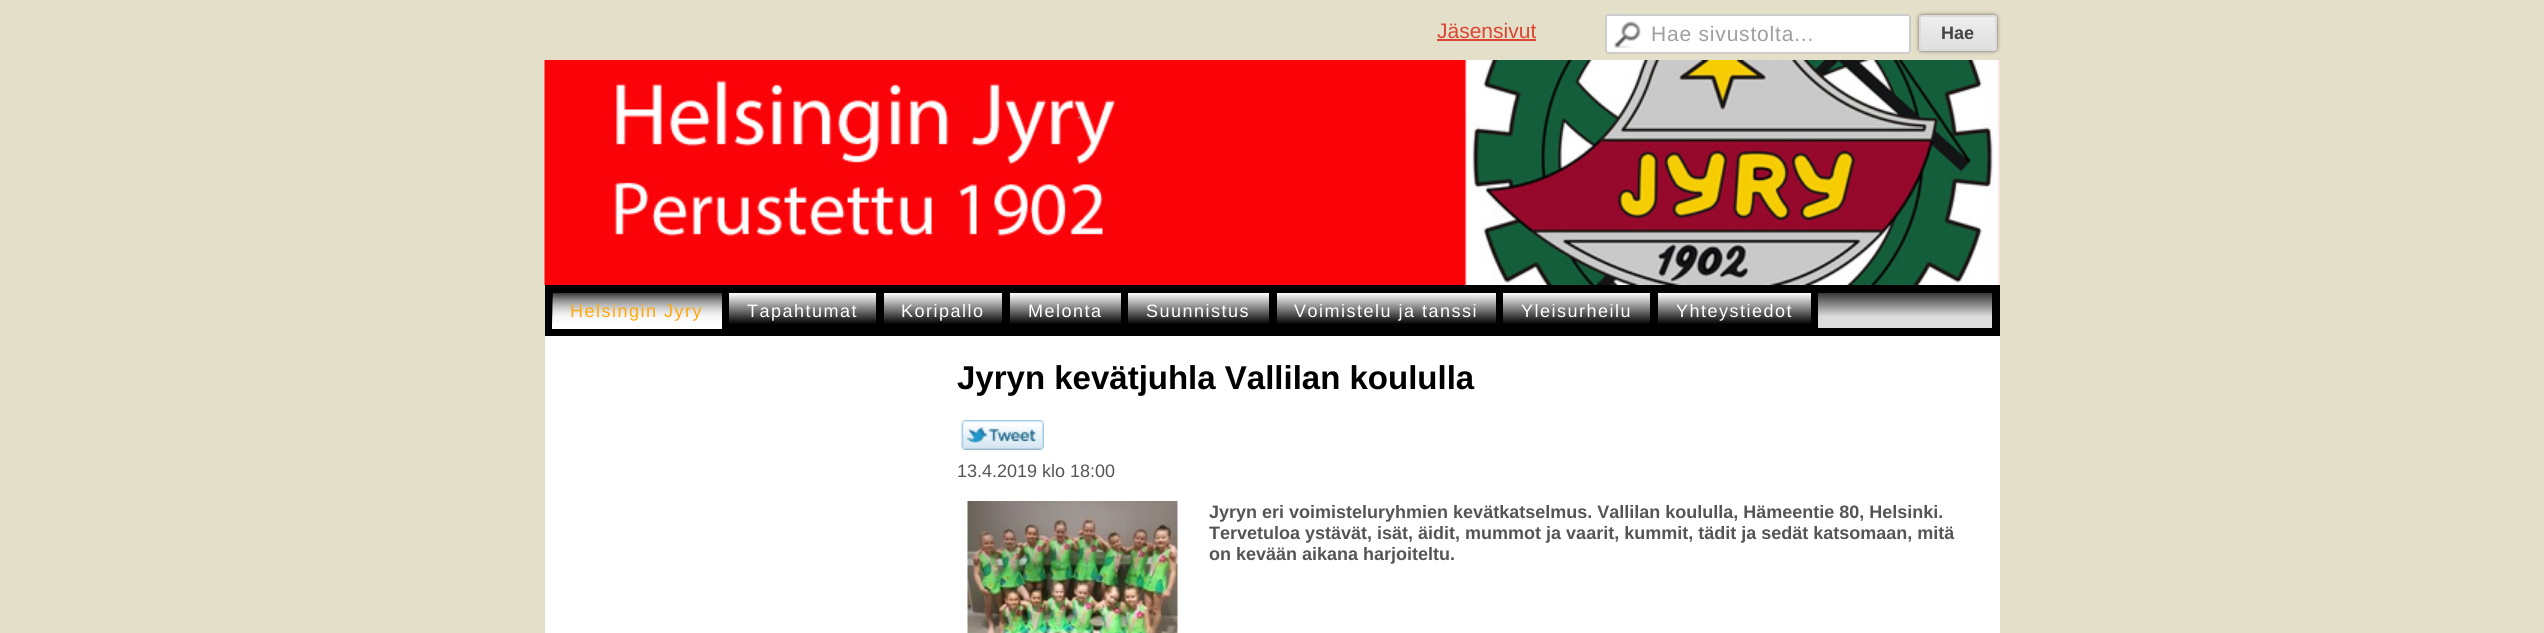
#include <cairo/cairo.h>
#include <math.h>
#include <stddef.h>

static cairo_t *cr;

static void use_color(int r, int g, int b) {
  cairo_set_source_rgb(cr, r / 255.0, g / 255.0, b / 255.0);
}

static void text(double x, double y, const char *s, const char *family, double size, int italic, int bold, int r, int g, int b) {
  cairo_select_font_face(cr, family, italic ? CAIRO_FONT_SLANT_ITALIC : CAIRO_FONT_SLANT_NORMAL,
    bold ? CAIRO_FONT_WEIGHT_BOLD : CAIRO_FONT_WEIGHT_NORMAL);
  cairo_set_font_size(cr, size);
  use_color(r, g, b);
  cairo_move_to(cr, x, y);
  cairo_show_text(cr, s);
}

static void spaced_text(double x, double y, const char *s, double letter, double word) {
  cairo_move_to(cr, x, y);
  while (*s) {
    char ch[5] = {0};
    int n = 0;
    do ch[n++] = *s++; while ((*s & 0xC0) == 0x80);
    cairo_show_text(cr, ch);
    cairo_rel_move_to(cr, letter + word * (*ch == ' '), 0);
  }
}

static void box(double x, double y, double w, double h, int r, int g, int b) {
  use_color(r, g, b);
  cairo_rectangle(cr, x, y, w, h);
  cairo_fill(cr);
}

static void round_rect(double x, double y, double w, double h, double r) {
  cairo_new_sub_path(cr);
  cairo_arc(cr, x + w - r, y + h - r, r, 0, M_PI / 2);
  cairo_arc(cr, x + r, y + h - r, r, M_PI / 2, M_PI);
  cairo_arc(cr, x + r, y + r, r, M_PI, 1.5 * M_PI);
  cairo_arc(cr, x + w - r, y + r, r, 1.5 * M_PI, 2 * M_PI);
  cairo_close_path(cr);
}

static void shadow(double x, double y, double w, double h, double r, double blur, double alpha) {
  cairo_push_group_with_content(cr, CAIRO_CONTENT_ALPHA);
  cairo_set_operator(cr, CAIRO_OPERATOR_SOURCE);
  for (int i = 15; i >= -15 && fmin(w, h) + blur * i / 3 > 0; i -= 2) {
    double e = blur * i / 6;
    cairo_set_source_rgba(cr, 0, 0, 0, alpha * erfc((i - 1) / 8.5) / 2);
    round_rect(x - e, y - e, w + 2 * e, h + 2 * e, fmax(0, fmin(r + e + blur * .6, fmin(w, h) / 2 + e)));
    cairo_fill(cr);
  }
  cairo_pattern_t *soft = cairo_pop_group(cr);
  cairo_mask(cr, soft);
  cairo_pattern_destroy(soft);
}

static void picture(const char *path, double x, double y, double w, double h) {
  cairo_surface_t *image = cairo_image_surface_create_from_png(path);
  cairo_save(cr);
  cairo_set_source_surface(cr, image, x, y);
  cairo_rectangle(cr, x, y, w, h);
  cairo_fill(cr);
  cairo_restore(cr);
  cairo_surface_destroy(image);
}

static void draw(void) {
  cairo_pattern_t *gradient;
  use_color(228, 223, 200);
  cairo_paint(cr);
  box(1437, 39, 99, 2, 220, 69, 51);
  use_color(255, 255, 255);
  round_rect(1605, 14, 306, 40, 3);
  cairo_fill(cr);
  picture("img_01.png", 1614, 21, 27, 27);
  round_rect(1606, 15, 304, 38, 2);
  use_color(204, 204, 204);
  cairo_stroke(cr);
  use_color(102, 102, 102);
  shadow(1919, 15, 78, 36, 3, 2, 1);
  cairo_save(cr);
  round_rect(1919, 15, 78, 36, 3);
  cairo_clip(cr);
  gradient = cairo_pattern_create_linear(1920, 17, 1920, 50);
  cairo_pattern_add_color_stop_rgba(gradient, 0.05, 0.929, 0.929, 0.929, 1);
  cairo_pattern_add_color_stop_rgba(gradient, 1, 0.875, 0.875, 0.875, 1);
  cairo_set_source(cr, gradient);
  cairo_pattern_destroy(gradient);
  cairo_rectangle(cr, 1919, 17, 78, 33);
  cairo_fill(cr);
  cairo_restore(cr);
  round_rect(1920, 16, 76, 34, 2);
  use_color(220, 220, 220);
  cairo_stroke(cr);
  picture("img_02.png", 544, 60, 1456, 225);
  gradient = cairo_pattern_create_linear(1272, 285, 1272, 336);
  cairo_pattern_add_color_stop_rgba(gradient, 0, 0, 0, 0, 1);
  cairo_pattern_add_color_stop_rgba(gradient, 0.62, 0.867, 0.867, 0.867, 1);
  cairo_pattern_add_color_stop_rgba(gradient, 1, 0.867, 0.867, 0.867, 1);
  cairo_set_source(cr, gradient);
  cairo_pattern_destroy(gradient);
  cairo_rectangle(cr, 553, 293, 1439, 35);
  cairo_fill(cr);
  cairo_rectangle(cr, 549, 289, 1447, 43);
  use_color(0, 0, 0);
  cairo_set_line_width(cr, 8);
  cairo_stroke(cr);
  gradient = cairo_pattern_create_linear(637, 293, 637, 329);
  cairo_pattern_add_color_stop_rgba(gradient, 0, 1, 1, 1, 0);
  cairo_pattern_add_color_stop_rgba(gradient, 0.87, 1, 1, 1, 1);
  cairo_pattern_add_color_stop_rgba(gradient, 1, 1, 1, 1, 1);
  cairo_set_source(cr, gradient);
  cairo_pattern_destroy(gradient);
  cairo_rectangle(cr, 552, 294, 170, 35);
  cairo_fill(cr);
  box(722, 293, 7, 36, 0, 0, 0);
  gradient = cairo_pattern_create_linear(803, 293, 803, 329);
  cairo_pattern_add_color_stop_rgba(gradient, 0, 1, 1, 1, 1);
  cairo_pattern_add_color_stop_rgba(gradient, 0.87, 0, 0, 0, 1);
  cairo_pattern_add_color_stop_rgba(gradient, 1, 0, 0, 0, 1);
  cairo_set_source(cr, gradient);
  cairo_pattern_destroy(gradient);
  cairo_rectangle(cr, 729, 293, 147, 35);
  cairo_fill(cr);
  box(876, 293, 8, 36, 0, 0, 0);
  gradient = cairo_pattern_create_linear(943, 293, 943, 329);
  cairo_pattern_add_color_stop_rgba(gradient, 0, 1, 1, 1, 1);
  cairo_pattern_add_color_stop_rgba(gradient, 0.87, 0, 0, 0, 1);
  cairo_pattern_add_color_stop_rgba(gradient, 1, 0, 0, 0, 1);
  cairo_set_source(cr, gradient);
  cairo_pattern_destroy(gradient);
  cairo_rectangle(cr, 884, 293, 118, 35);
  cairo_fill(cr);
  box(1002, 293, 8, 36, 0, 0, 0);
  gradient = cairo_pattern_create_linear(1065, 293, 1065, 329);
  cairo_pattern_add_color_stop_rgba(gradient, 0, 1, 1, 1, 1);
  cairo_pattern_add_color_stop_rgba(gradient, 0.87, 0, 0, 0, 1);
  cairo_pattern_add_color_stop_rgba(gradient, 1, 0, 0, 0, 1);
  cairo_set_source(cr, gradient);
  cairo_pattern_destroy(gradient);
  cairo_rectangle(cr, 1010, 293, 111, 35);
  cairo_fill(cr);
  box(1121, 293, 7, 36, 0, 0, 0);
  gradient = cairo_pattern_create_linear(1199, 293, 1199, 329);
  cairo_pattern_add_color_stop_rgba(gradient, 0, 1, 1, 1, 1);
  cairo_pattern_add_color_stop_rgba(gradient, 0.87, 0, 0, 0, 1);
  cairo_pattern_add_color_stop_rgba(gradient, 1, 0, 0, 0, 1);
  cairo_set_source(cr, gradient);
  cairo_pattern_destroy(gradient);
  cairo_rectangle(cr, 1128, 293, 141, 35);
  cairo_fill(cr);
  box(1269, 293, 8, 36, 0, 0, 0);
  gradient = cairo_pattern_create_linear(1386, 293, 1386, 329);
  cairo_pattern_add_color_stop_rgba(gradient, 0, 1, 1, 1, 1);
  cairo_pattern_add_color_stop_rgba(gradient, 0.87, 0, 0, 0, 1);
  cairo_pattern_add_color_stop_rgba(gradient, 1, 0, 0, 0, 1);
  cairo_set_source(cr, gradient);
  cairo_pattern_destroy(gradient);
  cairo_rectangle(cr, 1277, 293, 219, 35);
  cairo_fill(cr);
  box(1496, 293, 7, 36, 0, 0, 0);
  gradient = cairo_pattern_create_linear(1577, 293, 1577, 329);
  cairo_pattern_add_color_stop_rgba(gradient, 0, 1, 1, 1, 1);
  cairo_pattern_add_color_stop_rgba(gradient, 0.87, 0, 0, 0, 1);
  cairo_pattern_add_color_stop_rgba(gradient, 1, 0, 0, 0, 1);
  cairo_set_source(cr, gradient);
  cairo_pattern_destroy(gradient);
  cairo_rectangle(cr, 1503, 293, 147, 35);
  cairo_fill(cr);
  box(1650, 293, 8, 36, 0, 0, 0);
  gradient = cairo_pattern_create_linear(1734, 293, 1734, 329);
  cairo_pattern_add_color_stop_rgba(gradient, 0, 1, 1, 1, 1);
  cairo_pattern_add_color_stop_rgba(gradient, 0.87, 0, 0, 0, 1);
  cairo_pattern_add_color_stop_rgba(gradient, 1, 0, 0, 0, 1);
  cairo_set_source(cr, gradient);
  cairo_pattern_destroy(gradient);
  cairo_rectangle(cr, 1658, 293, 153, 35);
  cairo_fill(cr);
  box(1811, 293, 7, 36, 0, 0, 0);
  box(545, 336, 1455, 297, 255, 255, 255);
  picture("img_03.png", 961, 420, 83, 30);
  picture("img_04.png", 967, 501, 211, 132);
  text(1437, 38, "Jäsensivut", "Liberation Sans", 21, 0, 0, 220, 69, 51);
  use_color(159, 159, 159);
  spaced_text(1651, 41, "Hae sivustolta...", 0.8, 0);
  text(1941, 39, "Hae", "Liberation Sans", 18, 0, 1, 68, 68, 68);
  cairo_select_font_face(cr, "Liberation Sans", CAIRO_FONT_SLANT_NORMAL, CAIRO_FONT_WEIGHT_NORMAL);
  use_color(255, 169, 8);
  spaced_text(570, 317, "Helsingin Jyry", 1.5, 0);
  use_color(255, 255, 255);
  spaced_text(747, 317, "Tapahtumat", 1.5, 0);
  spaced_text(901, 317, "Koripallo", 1.5, 0);
  spaced_text(1028, 317, "Melonta", 1.5, 0);
  spaced_text(1146, 317, "Suunnistus", 1.5, 0);
  spaced_text(1294, 317, "Voimistelu ja tanssi", 1.5, 0);
  spaced_text(1521, 317, "Yleisurheilu", 1.5, 0);
  spaced_text(1676, 317, "Yhteystiedot", 1.5, 0);
  text(957, 389, "Jyryn kevätjuhla Vallilan koululla", "Liberation Sans", 33, 0, 1, 0, 0, 0);
  text(957, 477, "13.4.2019 klo 18:00", "Liberation Sans", 18, 0, 0, 85, 85, 85);
  text(1209, 518, "Jyryn eri voimisteluryhmien kevätkatselmus. Vallilan koululla, Hämeentie 80, Helsinki.", "Liberation Sans", 18, 0, 1, 85, 85, 85);
  text(1209, 539, "Tervetuloa ystävät, isät, äidit, mummot ja vaarit, kummit, tädit ja sedät katsomaan, mitä", "Liberation Sans", 18, 0, 1, 85, 85, 85);
  text(1209, 560, "on kevään aikana harjoiteltu.", "Liberation Sans", 18, 0, 1, 85, 85, 85);
}

int main(void) {
  cairo_surface_t *surface = cairo_image_surface_create(CAIRO_FORMAT_RGB24, 2544, 633);
  cr = cairo_create(surface);
  cairo_font_options_t *options = cairo_font_options_create();
  cairo_font_options_set_hint_metrics(options, CAIRO_HINT_METRICS_OFF);
  cairo_font_options_set_hint_style(options, CAIRO_HINT_STYLE_NONE);
  cairo_set_font_options(cr, options);
  cairo_set_miter_limit(cr, 4);
  draw();
  cairo_surface_write_to_png(surface, "out.png");
  cairo_font_options_destroy(options);
  cairo_destroy(cr);
  cairo_surface_destroy(surface);
  return 0;
}
